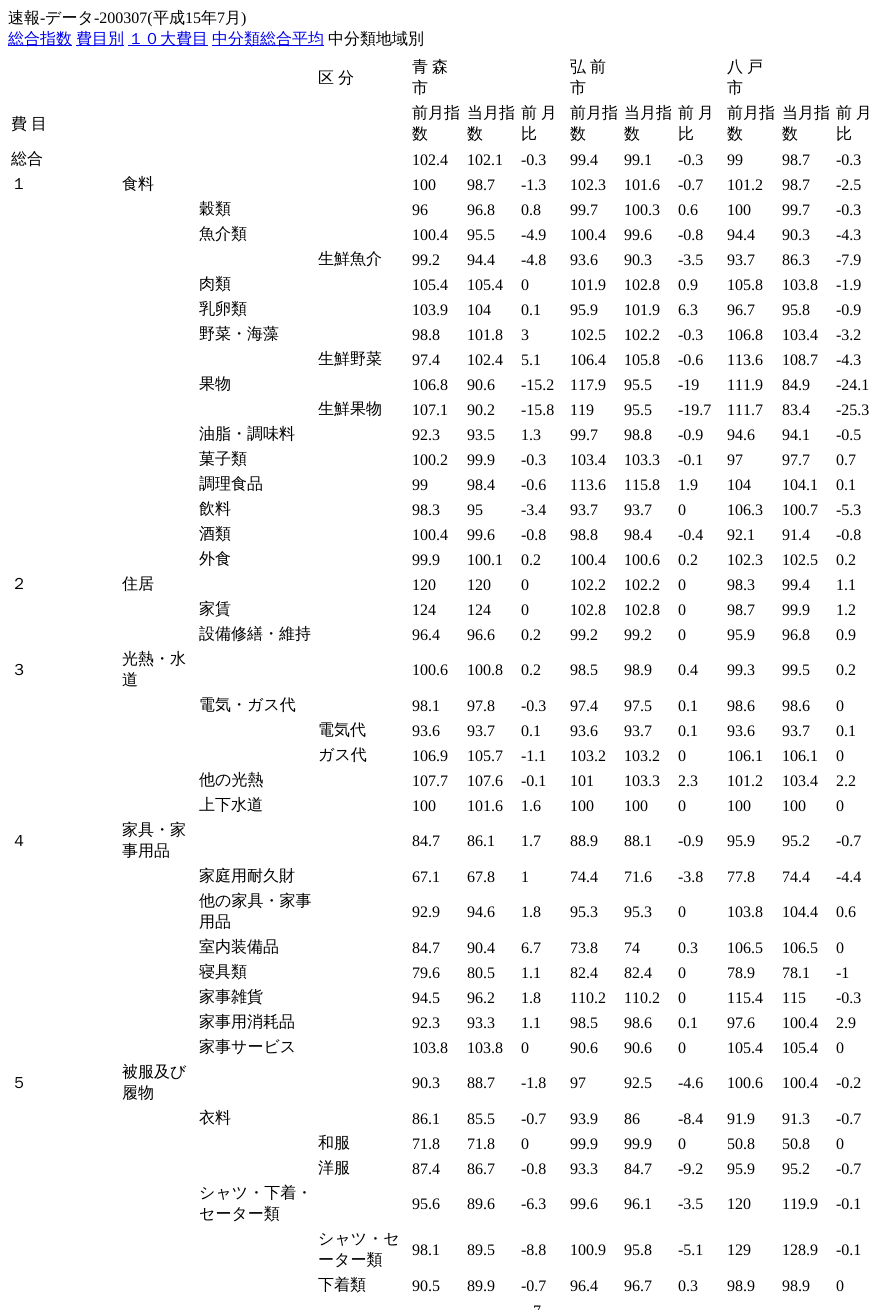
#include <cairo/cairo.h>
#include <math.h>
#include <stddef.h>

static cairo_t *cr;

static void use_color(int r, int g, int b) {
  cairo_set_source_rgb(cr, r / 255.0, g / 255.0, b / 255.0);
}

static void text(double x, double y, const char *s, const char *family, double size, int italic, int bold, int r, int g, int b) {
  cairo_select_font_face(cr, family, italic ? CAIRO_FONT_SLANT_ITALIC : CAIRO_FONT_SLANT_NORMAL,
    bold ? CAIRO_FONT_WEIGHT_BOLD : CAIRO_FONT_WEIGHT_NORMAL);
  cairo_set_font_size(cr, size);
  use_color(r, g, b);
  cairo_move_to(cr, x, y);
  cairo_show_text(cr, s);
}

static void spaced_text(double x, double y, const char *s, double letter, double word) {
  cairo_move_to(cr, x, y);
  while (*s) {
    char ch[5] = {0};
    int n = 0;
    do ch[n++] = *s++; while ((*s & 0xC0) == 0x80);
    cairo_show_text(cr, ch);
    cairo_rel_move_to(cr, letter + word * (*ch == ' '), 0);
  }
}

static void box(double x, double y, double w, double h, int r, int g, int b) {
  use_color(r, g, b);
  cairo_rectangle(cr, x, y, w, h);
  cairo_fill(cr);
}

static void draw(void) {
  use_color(255, 255, 255);
  cairo_paint(cr);
  box(8, 45, 64, 1, 0, 0, 238);
  box(76, 45, 48, 1, 0, 0, 238);
  box(128, 45, 80, 1, 0, 0, 238);
  box(212, 45, 112, 1, 0, 0, 238);
  text(8, 23, "速報", "WenQuanYi Zen Hei Medium", 16, 0, 0, 0, 0, 0);
  text(40, 23, "-", "Liberation Serif", 16, 0, 0, 0, 0, 0);
  text(45, 23, "データ", "WenQuanYi Zen Hei Medium", 16, 0, 0, 0, 0, 0);
  text(94, 23, "-200307(", "Liberation Serif", 16, 0, 0, 0, 0, 0);
  text(153, 23, "平成", "WenQuanYi Zen Hei Medium", 16, 0, 0, 0, 0, 0);
  text(185, 23, "15", "Liberation Serif", 16, 0, 0, 0, 0, 0);
  text(201, 23, "年", "WenQuanYi Zen Hei Medium", 16, 0, 0, 0, 0, 0);
  text(217, 23, "7", "Liberation Serif", 16, 0, 0, 0, 0, 0);
  text(225, 23, "月", "WenQuanYi Zen Hei Medium", 16, 0, 0, 0, 0, 0);
  text(241, 23, ")", "Liberation Serif", 16, 0, 0, 0, 0, 0);
  text(8, 44, "総合指数", "WenQuanYi Zen Hei Medium", 16, 0, 0, 0, 0, 238);
  text(76, 44, "費目別", "WenQuanYi Zen Hei Medium", 16, 0, 0, 0, 0, 238);
  text(128, 44, "１０大費目", "WenQuanYi Zen Hei Medium", 16, 0, 0, 0, 0, 238);
  text(212, 44, "中分類総合平均", "WenQuanYi Zen Hei Medium", 16, 0, 0, 0, 0, 238);
  text(328, 44, "中分類地域別", "WenQuanYi Zen Hei Medium", 16, 0, 0, 0, 0, 0);
  text(318, 83, "区", "WenQuanYi Zen Hei Medium", 16, 0, 0, 0, 0, 0);
  text(338, 83, "分", "WenQuanYi Zen Hei Medium", 16, 0, 0, 0, 0, 0);
  text(412, 72, "青", "WenQuanYi Zen Hei Medium", 16, 0, 0, 0, 0, 0);
  text(432, 72, "森", "WenQuanYi Zen Hei Medium", 16, 0, 0, 0, 0, 0);
  text(412, 93, "市", "WenQuanYi Zen Hei Medium", 16, 0, 0, 0, 0, 0);
  text(570, 72, "弘", "WenQuanYi Zen Hei Medium", 16, 0, 0, 0, 0, 0);
  text(590, 72, "前", "WenQuanYi Zen Hei Medium", 16, 0, 0, 0, 0, 0);
  text(570, 93, "市", "WenQuanYi Zen Hei Medium", 16, 0, 0, 0, 0, 0);
  text(727, 72, "八", "WenQuanYi Zen Hei Medium", 16, 0, 0, 0, 0, 0);
  text(747, 72, "戸", "WenQuanYi Zen Hei Medium", 16, 0, 0, 0, 0, 0);
  text(727, 93, "市", "WenQuanYi Zen Hei Medium", 16, 0, 0, 0, 0, 0);
  text(11, 129, "費", "WenQuanYi Zen Hei Medium", 16, 0, 0, 0, 0, 0);
  text(31, 129, "目", "WenQuanYi Zen Hei Medium", 16, 0, 0, 0, 0, 0);
  text(412, 118, "前月指", "WenQuanYi Zen Hei Medium", 16, 0, 0, 0, 0, 0);
  text(412, 139, "数", "WenQuanYi Zen Hei Medium", 16, 0, 0, 0, 0, 0);
  text(467, 118, "当月指", "WenQuanYi Zen Hei Medium", 16, 0, 0, 0, 0, 0);
  text(467, 139, "数", "WenQuanYi Zen Hei Medium", 16, 0, 0, 0, 0, 0);
  spaced_text(521, 118, "前 月", 0, -1);
  text(521, 139, "比", "WenQuanYi Zen Hei Medium", 16, 0, 0, 0, 0, 0);
  text(570, 118, "前月指", "WenQuanYi Zen Hei Medium", 16, 0, 0, 0, 0, 0);
  text(570, 139, "数", "WenQuanYi Zen Hei Medium", 16, 0, 0, 0, 0, 0);
  text(624, 118, "当月指", "WenQuanYi Zen Hei Medium", 16, 0, 0, 0, 0, 0);
  text(624, 139, "数", "WenQuanYi Zen Hei Medium", 16, 0, 0, 0, 0, 0);
  spaced_text(678, 118, "前 月", 0, -1);
  text(678, 139, "比", "WenQuanYi Zen Hei Medium", 16, 0, 0, 0, 0, 0);
  text(727, 118, "前月指", "WenQuanYi Zen Hei Medium", 16, 0, 0, 0, 0, 0);
  text(727, 139, "数", "WenQuanYi Zen Hei Medium", 16, 0, 0, 0, 0, 0);
  text(782, 118, "当月指", "WenQuanYi Zen Hei Medium", 16, 0, 0, 0, 0, 0);
  text(782, 139, "数", "WenQuanYi Zen Hei Medium", 16, 0, 0, 0, 0, 0);
  spaced_text(836, 118, "前 月", 0, -1);
  text(836, 139, "比", "WenQuanYi Zen Hei Medium", 16, 0, 0, 0, 0, 0);
  text(11, 164, "総合", "WenQuanYi Zen Hei Medium", 16, 0, 0, 0, 0, 0);
  text(412, 165, "102.4", "Liberation Serif", 16, 0, 0, 0, 0, 0);
  text(467, 165, "102.1", "Liberation Serif", 16, 0, 0, 0, 0, 0);
  text(521, 165, "-0.3", "Liberation Serif", 16, 0, 0, 0, 0, 0);
  text(570, 165, "99.4", "Liberation Serif", 16, 0, 0, 0, 0, 0);
  text(624, 165, "99.1", "Liberation Serif", 16, 0, 0, 0, 0, 0);
  text(678, 165, "-0.3", "Liberation Serif", 16, 0, 0, 0, 0, 0);
  text(727, 165, "99", "Liberation Serif", 16, 0, 0, 0, 0, 0);
  text(782, 165, "98.7", "Liberation Serif", 16, 0, 0, 0, 0, 0);
  text(836, 165, "-0.3", "Liberation Serif", 16, 0, 0, 0, 0, 0);
  text(11, 189, "１", "WenQuanYi Zen Hei Medium", 16, 0, 0, 0, 0, 0);
  text(122, 189, "食料", "WenQuanYi Zen Hei Medium", 16, 0, 0, 0, 0, 0);
  text(412, 190, "100", "Liberation Serif", 16, 0, 0, 0, 0, 0);
  text(467, 190, "98.7", "Liberation Serif", 16, 0, 0, 0, 0, 0);
  text(521, 190, "-1.3", "Liberation Serif", 16, 0, 0, 0, 0, 0);
  text(570, 190, "102.3", "Liberation Serif", 16, 0, 0, 0, 0, 0);
  text(624, 190, "101.6", "Liberation Serif", 16, 0, 0, 0, 0, 0);
  text(678, 190, "-0.7", "Liberation Serif", 16, 0, 0, 0, 0, 0);
  text(727, 190, "101.2", "Liberation Serif", 16, 0, 0, 0, 0, 0);
  text(782, 190, "98.7", "Liberation Serif", 16, 0, 0, 0, 0, 0);
  text(836, 190, "-2.5", "Liberation Serif", 16, 0, 0, 0, 0, 0);
  text(199, 214, "穀類", "WenQuanYi Zen Hei Medium", 16, 0, 0, 0, 0, 0);
  text(412, 215, "96", "Liberation Serif", 16, 0, 0, 0, 0, 0);
  text(467, 215, "96.8", "Liberation Serif", 16, 0, 0, 0, 0, 0);
  text(521, 215, "0.8", "Liberation Serif", 16, 0, 0, 0, 0, 0);
  text(570, 215, "99.7", "Liberation Serif", 16, 0, 0, 0, 0, 0);
  text(624, 215, "100.3", "Liberation Serif", 16, 0, 0, 0, 0, 0);
  text(678, 215, "0.6", "Liberation Serif", 16, 0, 0, 0, 0, 0);
  text(727, 215, "100", "Liberation Serif", 16, 0, 0, 0, 0, 0);
  text(782, 215, "99.7", "Liberation Serif", 16, 0, 0, 0, 0, 0);
  text(836, 215, "-0.3", "Liberation Serif", 16, 0, 0, 0, 0, 0);
  text(199, 239, "魚介類", "WenQuanYi Zen Hei Medium", 16, 0, 0, 0, 0, 0);
  text(412, 240, "100.4", "Liberation Serif", 16, 0, 0, 0, 0, 0);
  text(467, 240, "95.5", "Liberation Serif", 16, 0, 0, 0, 0, 0);
  text(521, 240, "-4.9", "Liberation Serif", 16, 0, 0, 0, 0, 0);
  text(570, 240, "100.4", "Liberation Serif", 16, 0, 0, 0, 0, 0);
  text(624, 240, "99.6", "Liberation Serif", 16, 0, 0, 0, 0, 0);
  text(678, 240, "-0.8", "Liberation Serif", 16, 0, 0, 0, 0, 0);
  text(727, 240, "94.4", "Liberation Serif", 16, 0, 0, 0, 0, 0);
  text(782, 240, "90.3", "Liberation Serif", 16, 0, 0, 0, 0, 0);
  text(836, 240, "-4.3", "Liberation Serif", 16, 0, 0, 0, 0, 0);
  text(318, 264, "生鮮魚介", "WenQuanYi Zen Hei Medium", 16, 0, 0, 0, 0, 0);
  text(412, 265, "99.2", "Liberation Serif", 16, 0, 0, 0, 0, 0);
  text(467, 265, "94.4", "Liberation Serif", 16, 0, 0, 0, 0, 0);
  text(521, 265, "-4.8", "Liberation Serif", 16, 0, 0, 0, 0, 0);
  text(570, 265, "93.6", "Liberation Serif", 16, 0, 0, 0, 0, 0);
  text(624, 265, "90.3", "Liberation Serif", 16, 0, 0, 0, 0, 0);
  text(678, 265, "-3.5", "Liberation Serif", 16, 0, 0, 0, 0, 0);
  text(727, 265, "93.7", "Liberation Serif", 16, 0, 0, 0, 0, 0);
  text(782, 265, "86.3", "Liberation Serif", 16, 0, 0, 0, 0, 0);
  text(836, 265, "-7.9", "Liberation Serif", 16, 0, 0, 0, 0, 0);
  text(199, 289, "肉類", "WenQuanYi Zen Hei Medium", 16, 0, 0, 0, 0, 0);
  text(412, 290, "105.4", "Liberation Serif", 16, 0, 0, 0, 0, 0);
  text(467, 290, "105.4", "Liberation Serif", 16, 0, 0, 0, 0, 0);
  text(521, 290, "0", "Liberation Serif", 16, 0, 0, 0, 0, 0);
  text(570, 290, "101.9", "Liberation Serif", 16, 0, 0, 0, 0, 0);
  text(624, 290, "102.8", "Liberation Serif", 16, 0, 0, 0, 0, 0);
  text(678, 290, "0.9", "Liberation Serif", 16, 0, 0, 0, 0, 0);
  text(727, 290, "105.8", "Liberation Serif", 16, 0, 0, 0, 0, 0);
  text(782, 290, "103.8", "Liberation Serif", 16, 0, 0, 0, 0, 0);
  text(836, 290, "-1.9", "Liberation Serif", 16, 0, 0, 0, 0, 0);
  text(199, 314, "乳卵類", "WenQuanYi Zen Hei Medium", 16, 0, 0, 0, 0, 0);
  text(412, 315, "103.9", "Liberation Serif", 16, 0, 0, 0, 0, 0);
  text(467, 315, "104", "Liberation Serif", 16, 0, 0, 0, 0, 0);
  text(521, 315, "0.1", "Liberation Serif", 16, 0, 0, 0, 0, 0);
  text(570, 315, "95.9", "Liberation Serif", 16, 0, 0, 0, 0, 0);
  text(624, 315, "101.9", "Liberation Serif", 16, 0, 0, 0, 0, 0);
  text(678, 315, "6.3", "Liberation Serif", 16, 0, 0, 0, 0, 0);
  text(727, 315, "96.7", "Liberation Serif", 16, 0, 0, 0, 0, 0);
  text(782, 315, "95.8", "Liberation Serif", 16, 0, 0, 0, 0, 0);
  text(836, 315, "-0.9", "Liberation Serif", 16, 0, 0, 0, 0, 0);
  text(199, 339, "野菜・海藻", "WenQuanYi Zen Hei Medium", 16, 0, 0, 0, 0, 0);
  text(412, 340, "98.8", "Liberation Serif", 16, 0, 0, 0, 0, 0);
  text(467, 340, "101.8", "Liberation Serif", 16, 0, 0, 0, 0, 0);
  text(521, 340, "3", "Liberation Serif", 16, 0, 0, 0, 0, 0);
  text(570, 340, "102.5", "Liberation Serif", 16, 0, 0, 0, 0, 0);
  text(624, 340, "102.2", "Liberation Serif", 16, 0, 0, 0, 0, 0);
  text(678, 340, "-0.3", "Liberation Serif", 16, 0, 0, 0, 0, 0);
  text(727, 340, "106.8", "Liberation Serif", 16, 0, 0, 0, 0, 0);
  text(782, 340, "103.4", "Liberation Serif", 16, 0, 0, 0, 0, 0);
  text(836, 340, "-3.2", "Liberation Serif", 16, 0, 0, 0, 0, 0);
  text(318, 364, "生鮮野菜", "WenQuanYi Zen Hei Medium", 16, 0, 0, 0, 0, 0);
  text(412, 365, "97.4", "Liberation Serif", 16, 0, 0, 0, 0, 0);
  text(467, 365, "102.4", "Liberation Serif", 16, 0, 0, 0, 0, 0);
  text(521, 365, "5.1", "Liberation Serif", 16, 0, 0, 0, 0, 0);
  text(570, 365, "106.4", "Liberation Serif", 16, 0, 0, 0, 0, 0);
  text(624, 365, "105.8", "Liberation Serif", 16, 0, 0, 0, 0, 0);
  text(678, 365, "-0.6", "Liberation Serif", 16, 0, 0, 0, 0, 0);
  text(727, 365, "113.6", "Liberation Serif", 16, 0, 0, 0, 0, 0);
  text(782, 365, "108.7", "Liberation Serif", 16, 0, 0, 0, 0, 0);
  text(836, 365, "-4.3", "Liberation Serif", 16, 0, 0, 0, 0, 0);
  text(199, 389, "果物", "WenQuanYi Zen Hei Medium", 16, 0, 0, 0, 0, 0);
  text(412, 390, "106.8", "Liberation Serif", 16, 0, 0, 0, 0, 0);
  text(467, 390, "90.6", "Liberation Serif", 16, 0, 0, 0, 0, 0);
  text(521, 390, "-15.2", "Liberation Serif", 16, 0, 0, 0, 0, 0);
  text(570, 390, "117.9", "Liberation Serif", 16, 0, 0, 0, 0, 0);
  text(624, 390, "95.5", "Liberation Serif", 16, 0, 0, 0, 0, 0);
  text(678, 390, "-19", "Liberation Serif", 16, 0, 0, 0, 0, 0);
  text(727, 390, "111.9", "Liberation Serif", 16, 0, 0, 0, 0, 0);
  text(782, 390, "84.9", "Liberation Serif", 16, 0, 0, 0, 0, 0);
  text(836, 390, "-24.1", "Liberation Serif", 16, 0, 0, 0, 0, 0);
  text(318, 414, "生鮮果物", "WenQuanYi Zen Hei Medium", 16, 0, 0, 0, 0, 0);
  text(412, 415, "107.1", "Liberation Serif", 16, 0, 0, 0, 0, 0);
  text(467, 415, "90.2", "Liberation Serif", 16, 0, 0, 0, 0, 0);
  text(521, 415, "-15.8", "Liberation Serif", 16, 0, 0, 0, 0, 0);
  text(570, 415, "119", "Liberation Serif", 16, 0, 0, 0, 0, 0);
  text(624, 415, "95.5", "Liberation Serif", 16, 0, 0, 0, 0, 0);
  text(678, 415, "-19.7", "Liberation Serif", 16, 0, 0, 0, 0, 0);
  text(727, 415, "111.7", "Liberation Serif", 16, 0, 0, 0, 0, 0);
  text(782, 415, "83.4", "Liberation Serif", 16, 0, 0, 0, 0, 0);
  text(836, 415, "-25.3", "Liberation Serif", 16, 0, 0, 0, 0, 0);
  text(199, 439, "油脂・調味料", "WenQuanYi Zen Hei Medium", 16, 0, 0, 0, 0, 0);
  text(412, 440, "92.3", "Liberation Serif", 16, 0, 0, 0, 0, 0);
  text(467, 440, "93.5", "Liberation Serif", 16, 0, 0, 0, 0, 0);
  text(521, 440, "1.3", "Liberation Serif", 16, 0, 0, 0, 0, 0);
  text(570, 440, "99.7", "Liberation Serif", 16, 0, 0, 0, 0, 0);
  text(624, 440, "98.8", "Liberation Serif", 16, 0, 0, 0, 0, 0);
  text(678, 440, "-0.9", "Liberation Serif", 16, 0, 0, 0, 0, 0);
  text(727, 440, "94.6", "Liberation Serif", 16, 0, 0, 0, 0, 0);
  text(782, 440, "94.1", "Liberation Serif", 16, 0, 0, 0, 0, 0);
  text(836, 440, "-0.5", "Liberation Serif", 16, 0, 0, 0, 0, 0);
  text(199, 464, "菓子類", "WenQuanYi Zen Hei Medium", 16, 0, 0, 0, 0, 0);
  text(412, 465, "100.2", "Liberation Serif", 16, 0, 0, 0, 0, 0);
  text(467, 465, "99.9", "Liberation Serif", 16, 0, 0, 0, 0, 0);
  text(521, 465, "-0.3", "Liberation Serif", 16, 0, 0, 0, 0, 0);
  text(570, 465, "103.4", "Liberation Serif", 16, 0, 0, 0, 0, 0);
  text(624, 465, "103.3", "Liberation Serif", 16, 0, 0, 0, 0, 0);
  text(678, 465, "-0.1", "Liberation Serif", 16, 0, 0, 0, 0, 0);
  text(727, 465, "97", "Liberation Serif", 16, 0, 0, 0, 0, 0);
  text(782, 465, "97.7", "Liberation Serif", 16, 0, 0, 0, 0, 0);
  text(836, 465, "0.7", "Liberation Serif", 16, 0, 0, 0, 0, 0);
  text(199, 489, "調理食品", "WenQuanYi Zen Hei Medium", 16, 0, 0, 0, 0, 0);
  text(412, 490, "99", "Liberation Serif", 16, 0, 0, 0, 0, 0);
  text(467, 490, "98.4", "Liberation Serif", 16, 0, 0, 0, 0, 0);
  text(521, 490, "-0.6", "Liberation Serif", 16, 0, 0, 0, 0, 0);
  text(570, 490, "113.6", "Liberation Serif", 16, 0, 0, 0, 0, 0);
  text(624, 490, "115.8", "Liberation Serif", 16, 0, 0, 0, 0, 0);
  text(678, 490, "1.9", "Liberation Serif", 16, 0, 0, 0, 0, 0);
  text(727, 490, "104", "Liberation Serif", 16, 0, 0, 0, 0, 0);
  text(782, 490, "104.1", "Liberation Serif", 16, 0, 0, 0, 0, 0);
  text(836, 490, "0.1", "Liberation Serif", 16, 0, 0, 0, 0, 0);
  text(199, 514, "飲料", "WenQuanYi Zen Hei Medium", 16, 0, 0, 0, 0, 0);
  text(412, 515, "98.3", "Liberation Serif", 16, 0, 0, 0, 0, 0);
  text(467, 515, "95", "Liberation Serif", 16, 0, 0, 0, 0, 0);
  text(521, 515, "-3.4", "Liberation Serif", 16, 0, 0, 0, 0, 0);
  text(570, 515, "93.7", "Liberation Serif", 16, 0, 0, 0, 0, 0);
  text(624, 515, "93.7", "Liberation Serif", 16, 0, 0, 0, 0, 0);
  text(678, 515, "0", "Liberation Serif", 16, 0, 0, 0, 0, 0);
  text(727, 515, "106.3", "Liberation Serif", 16, 0, 0, 0, 0, 0);
  text(782, 515, "100.7", "Liberation Serif", 16, 0, 0, 0, 0, 0);
  text(836, 515, "-5.3", "Liberation Serif", 16, 0, 0, 0, 0, 0);
  text(199, 539, "酒類", "WenQuanYi Zen Hei Medium", 16, 0, 0, 0, 0, 0);
  text(412, 540, "100.4", "Liberation Serif", 16, 0, 0, 0, 0, 0);
  text(467, 540, "99.6", "Liberation Serif", 16, 0, 0, 0, 0, 0);
  text(521, 540, "-0.8", "Liberation Serif", 16, 0, 0, 0, 0, 0);
  text(570, 540, "98.8", "Liberation Serif", 16, 0, 0, 0, 0, 0);
  text(624, 540, "98.4", "Liberation Serif", 16, 0, 0, 0, 0, 0);
  text(678, 540, "-0.4", "Liberation Serif", 16, 0, 0, 0, 0, 0);
  text(727, 540, "92.1", "Liberation Serif", 16, 0, 0, 0, 0, 0);
  text(782, 540, "91.4", "Liberation Serif", 16, 0, 0, 0, 0, 0);
  text(836, 540, "-0.8", "Liberation Serif", 16, 0, 0, 0, 0, 0);
  text(199, 564, "外食", "WenQuanYi Zen Hei Medium", 16, 0, 0, 0, 0, 0);
  text(412, 565, "99.9", "Liberation Serif", 16, 0, 0, 0, 0, 0);
  text(467, 565, "100.1", "Liberation Serif", 16, 0, 0, 0, 0, 0);
  text(521, 565, "0.2", "Liberation Serif", 16, 0, 0, 0, 0, 0);
  text(570, 565, "100.4", "Liberation Serif", 16, 0, 0, 0, 0, 0);
  text(624, 565, "100.6", "Liberation Serif", 16, 0, 0, 0, 0, 0);
  text(678, 565, "0.2", "Liberation Serif", 16, 0, 0, 0, 0, 0);
  text(727, 565, "102.3", "Liberation Serif", 16, 0, 0, 0, 0, 0);
  text(782, 565, "102.5", "Liberation Serif", 16, 0, 0, 0, 0, 0);
  text(836, 565, "0.2", "Liberation Serif", 16, 0, 0, 0, 0, 0);
  text(11, 589, "２", "WenQuanYi Zen Hei Medium", 16, 0, 0, 0, 0, 0);
  text(122, 589, "住居", "WenQuanYi Zen Hei Medium", 16, 0, 0, 0, 0, 0);
  text(412, 590, "120", "Liberation Serif", 16, 0, 0, 0, 0, 0);
  text(467, 590, "120", "Liberation Serif", 16, 0, 0, 0, 0, 0);
  text(521, 590, "0", "Liberation Serif", 16, 0, 0, 0, 0, 0);
  text(570, 590, "102.2", "Liberation Serif", 16, 0, 0, 0, 0, 0);
  text(624, 590, "102.2", "Liberation Serif", 16, 0, 0, 0, 0, 0);
  text(678, 590, "0", "Liberation Serif", 16, 0, 0, 0, 0, 0);
  text(727, 590, "98.3", "Liberation Serif", 16, 0, 0, 0, 0, 0);
  text(782, 590, "99.4", "Liberation Serif", 16, 0, 0, 0, 0, 0);
  text(836, 590, "1.1", "Liberation Serif", 16, 0, 0, 0, 0, 0);
  text(199, 614, "家賃", "WenQuanYi Zen Hei Medium", 16, 0, 0, 0, 0, 0);
  text(412, 615, "124", "Liberation Serif", 16, 0, 0, 0, 0, 0);
  text(467, 615, "124", "Liberation Serif", 16, 0, 0, 0, 0, 0);
  text(521, 615, "0", "Liberation Serif", 16, 0, 0, 0, 0, 0);
  text(570, 615, "102.8", "Liberation Serif", 16, 0, 0, 0, 0, 0);
  text(624, 615, "102.8", "Liberation Serif", 16, 0, 0, 0, 0, 0);
  text(678, 615, "0", "Liberation Serif", 16, 0, 0, 0, 0, 0);
  text(727, 615, "98.7", "Liberation Serif", 16, 0, 0, 0, 0, 0);
  text(782, 615, "99.9", "Liberation Serif", 16, 0, 0, 0, 0, 0);
  text(836, 615, "1.2", "Liberation Serif", 16, 0, 0, 0, 0, 0);
  text(199, 639, "設備修繕・維持", "WenQuanYi Zen Hei Medium", 16, 0, 0, 0, 0, 0);
  text(412, 640, "96.4", "Liberation Serif", 16, 0, 0, 0, 0, 0);
  text(467, 640, "96.6", "Liberation Serif", 16, 0, 0, 0, 0, 0);
  text(521, 640, "0.2", "Liberation Serif", 16, 0, 0, 0, 0, 0);
  text(570, 640, "99.2", "Liberation Serif", 16, 0, 0, 0, 0, 0);
  text(624, 640, "99.2", "Liberation Serif", 16, 0, 0, 0, 0, 0);
  text(678, 640, "0", "Liberation Serif", 16, 0, 0, 0, 0, 0);
  text(727, 640, "95.9", "Liberation Serif", 16, 0, 0, 0, 0, 0);
  text(782, 640, "96.8", "Liberation Serif", 16, 0, 0, 0, 0, 0);
  text(836, 640, "0.9", "Liberation Serif", 16, 0, 0, 0, 0, 0);
  text(11, 675, "３", "WenQuanYi Zen Hei Medium", 16, 0, 0, 0, 0, 0);
  text(122, 664, "光熱・水", "WenQuanYi Zen Hei Medium", 16, 0, 0, 0, 0, 0);
  text(122, 685, "道", "WenQuanYi Zen Hei Medium", 16, 0, 0, 0, 0, 0);
  text(412, 675, "100.6", "Liberation Serif", 16, 0, 0, 0, 0, 0);
  text(467, 675, "100.8", "Liberation Serif", 16, 0, 0, 0, 0, 0);
  text(521, 675, "0.2", "Liberation Serif", 16, 0, 0, 0, 0, 0);
  text(570, 675, "98.5", "Liberation Serif", 16, 0, 0, 0, 0, 0);
  text(624, 675, "98.9", "Liberation Serif", 16, 0, 0, 0, 0, 0);
  text(678, 675, "0.4", "Liberation Serif", 16, 0, 0, 0, 0, 0);
  text(727, 675, "99.3", "Liberation Serif", 16, 0, 0, 0, 0, 0);
  text(782, 675, "99.5", "Liberation Serif", 16, 0, 0, 0, 0, 0);
  text(836, 675, "0.2", "Liberation Serif", 16, 0, 0, 0, 0, 0);
  text(199, 710, "電気・ガス代", "WenQuanYi Zen Hei Medium", 16, 0, 0, 0, 0, 0);
  text(412, 711, "98.1", "Liberation Serif", 16, 0, 0, 0, 0, 0);
  text(467, 711, "97.8", "Liberation Serif", 16, 0, 0, 0, 0, 0);
  text(521, 711, "-0.3", "Liberation Serif", 16, 0, 0, 0, 0, 0);
  text(570, 711, "97.4", "Liberation Serif", 16, 0, 0, 0, 0, 0);
  text(624, 711, "97.5", "Liberation Serif", 16, 0, 0, 0, 0, 0);
  text(678, 711, "0.1", "Liberation Serif", 16, 0, 0, 0, 0, 0);
  text(727, 711, "98.6", "Liberation Serif", 16, 0, 0, 0, 0, 0);
  text(782, 711, "98.6", "Liberation Serif", 16, 0, 0, 0, 0, 0);
  text(836, 711, "0", "Liberation Serif", 16, 0, 0, 0, 0, 0);
  text(318, 735, "電気代", "WenQuanYi Zen Hei Medium", 16, 0, 0, 0, 0, 0);
  text(412, 736, "93.6", "Liberation Serif", 16, 0, 0, 0, 0, 0);
  text(467, 736, "93.7", "Liberation Serif", 16, 0, 0, 0, 0, 0);
  text(521, 736, "0.1", "Liberation Serif", 16, 0, 0, 0, 0, 0);
  text(570, 736, "93.6", "Liberation Serif", 16, 0, 0, 0, 0, 0);
  text(624, 736, "93.7", "Liberation Serif", 16, 0, 0, 0, 0, 0);
  text(678, 736, "0.1", "Liberation Serif", 16, 0, 0, 0, 0, 0);
  text(727, 736, "93.6", "Liberation Serif", 16, 0, 0, 0, 0, 0);
  text(782, 736, "93.7", "Liberation Serif", 16, 0, 0, 0, 0, 0);
  text(836, 736, "0.1", "Liberation Serif", 16, 0, 0, 0, 0, 0);
  text(318, 760, "ガス代", "WenQuanYi Zen Hei Medium", 16, 0, 0, 0, 0, 0);
  text(412, 761, "106.9", "Liberation Serif", 16, 0, 0, 0, 0, 0);
  text(467, 761, "105.7", "Liberation Serif", 16, 0, 0, 0, 0, 0);
  text(521, 761, "-1.1", "Liberation Serif", 16, 0, 0, 0, 0, 0);
  text(570, 761, "103.2", "Liberation Serif", 16, 0, 0, 0, 0, 0);
  text(624, 761, "103.2", "Liberation Serif", 16, 0, 0, 0, 0, 0);
  text(678, 761, "0", "Liberation Serif", 16, 0, 0, 0, 0, 0);
  text(727, 761, "106.1", "Liberation Serif", 16, 0, 0, 0, 0, 0);
  text(782, 761, "106.1", "Liberation Serif", 16, 0, 0, 0, 0, 0);
  text(836, 761, "0", "Liberation Serif", 16, 0, 0, 0, 0, 0);
  text(199, 785, "他の光熱", "WenQuanYi Zen Hei Medium", 16, 0, 0, 0, 0, 0);
  text(412, 786, "107.7", "Liberation Serif", 16, 0, 0, 0, 0, 0);
  text(467, 786, "107.6", "Liberation Serif", 16, 0, 0, 0, 0, 0);
  text(521, 786, "-0.1", "Liberation Serif", 16, 0, 0, 0, 0, 0);
  text(570, 786, "101", "Liberation Serif", 16, 0, 0, 0, 0, 0);
  text(624, 786, "103.3", "Liberation Serif", 16, 0, 0, 0, 0, 0);
  text(678, 786, "2.3", "Liberation Serif", 16, 0, 0, 0, 0, 0);
  text(727, 786, "101.2", "Liberation Serif", 16, 0, 0, 0, 0, 0);
  text(782, 786, "103.4", "Liberation Serif", 16, 0, 0, 0, 0, 0);
  text(836, 786, "2.2", "Liberation Serif", 16, 0, 0, 0, 0, 0);
  text(199, 810, "上下水道", "WenQuanYi Zen Hei Medium", 16, 0, 0, 0, 0, 0);
  text(412, 811, "100", "Liberation Serif", 16, 0, 0, 0, 0, 0);
  text(467, 811, "101.6", "Liberation Serif", 16, 0, 0, 0, 0, 0);
  text(521, 811, "1.6", "Liberation Serif", 16, 0, 0, 0, 0, 0);
  text(570, 811, "100", "Liberation Serif", 16, 0, 0, 0, 0, 0);
  text(624, 811, "100", "Liberation Serif", 16, 0, 0, 0, 0, 0);
  text(678, 811, "0", "Liberation Serif", 16, 0, 0, 0, 0, 0);
  text(727, 811, "100", "Liberation Serif", 16, 0, 0, 0, 0, 0);
  text(782, 811, "100", "Liberation Serif", 16, 0, 0, 0, 0, 0);
  text(836, 811, "0", "Liberation Serif", 16, 0, 0, 0, 0, 0);
  text(11, 846, "４", "WenQuanYi Zen Hei Medium", 16, 0, 0, 0, 0, 0);
  text(122, 835, "家具・家", "WenQuanYi Zen Hei Medium", 16, 0, 0, 0, 0, 0);
  text(122, 856, "事用品", "WenQuanYi Zen Hei Medium", 16, 0, 0, 0, 0, 0);
  text(412, 846, "84.7", "Liberation Serif", 16, 0, 0, 0, 0, 0);
  text(467, 846, "86.1", "Liberation Serif", 16, 0, 0, 0, 0, 0);
  text(521, 846, "1.7", "Liberation Serif", 16, 0, 0, 0, 0, 0);
  text(570, 846, "88.9", "Liberation Serif", 16, 0, 0, 0, 0, 0);
  text(624, 846, "88.1", "Liberation Serif", 16, 0, 0, 0, 0, 0);
  text(678, 846, "-0.9", "Liberation Serif", 16, 0, 0, 0, 0, 0);
  text(727, 846, "95.9", "Liberation Serif", 16, 0, 0, 0, 0, 0);
  text(782, 846, "95.2", "Liberation Serif", 16, 0, 0, 0, 0, 0);
  text(836, 846, "-0.7", "Liberation Serif", 16, 0, 0, 0, 0, 0);
  text(199, 881, "家庭用耐久財", "WenQuanYi Zen Hei Medium", 16, 0, 0, 0, 0, 0);
  text(412, 882, "67.1", "Liberation Serif", 16, 0, 0, 0, 0, 0);
  text(467, 882, "67.8", "Liberation Serif", 16, 0, 0, 0, 0, 0);
  text(521, 882, "1", "Liberation Serif", 16, 0, 0, 0, 0, 0);
  text(570, 882, "74.4", "Liberation Serif", 16, 0, 0, 0, 0, 0);
  text(624, 882, "71.6", "Liberation Serif", 16, 0, 0, 0, 0, 0);
  text(678, 882, "-3.8", "Liberation Serif", 16, 0, 0, 0, 0, 0);
  text(727, 882, "77.8", "Liberation Serif", 16, 0, 0, 0, 0, 0);
  text(782, 882, "74.4", "Liberation Serif", 16, 0, 0, 0, 0, 0);
  text(836, 882, "-4.4", "Liberation Serif", 16, 0, 0, 0, 0, 0);
  text(199, 906, "他の家具・家事", "WenQuanYi Zen Hei Medium", 16, 0, 0, 0, 0, 0);
  text(199, 927, "用品", "WenQuanYi Zen Hei Medium", 16, 0, 0, 0, 0, 0);
  text(412, 917, "92.9", "Liberation Serif", 16, 0, 0, 0, 0, 0);
  text(467, 917, "94.6", "Liberation Serif", 16, 0, 0, 0, 0, 0);
  text(521, 917, "1.8", "Liberation Serif", 16, 0, 0, 0, 0, 0);
  text(570, 917, "95.3", "Liberation Serif", 16, 0, 0, 0, 0, 0);
  text(624, 917, "95.3", "Liberation Serif", 16, 0, 0, 0, 0, 0);
  text(678, 917, "0", "Liberation Serif", 16, 0, 0, 0, 0, 0);
  text(727, 917, "103.8", "Liberation Serif", 16, 0, 0, 0, 0, 0);
  text(782, 917, "104.4", "Liberation Serif", 16, 0, 0, 0, 0, 0);
  text(836, 917, "0.6", "Liberation Serif", 16, 0, 0, 0, 0, 0);
  text(199, 952, "室内装備品", "WenQuanYi Zen Hei Medium", 16, 0, 0, 0, 0, 0);
  text(412, 953, "84.7", "Liberation Serif", 16, 0, 0, 0, 0, 0);
  text(467, 953, "90.4", "Liberation Serif", 16, 0, 0, 0, 0, 0);
  text(521, 953, "6.7", "Liberation Serif", 16, 0, 0, 0, 0, 0);
  text(570, 953, "73.8", "Liberation Serif", 16, 0, 0, 0, 0, 0);
  text(624, 953, "74", "Liberation Serif", 16, 0, 0, 0, 0, 0);
  text(678, 953, "0.3", "Liberation Serif", 16, 0, 0, 0, 0, 0);
  text(727, 953, "106.5", "Liberation Serif", 16, 0, 0, 0, 0, 0);
  text(782, 953, "106.5", "Liberation Serif", 16, 0, 0, 0, 0, 0);
  text(836, 953, "0", "Liberation Serif", 16, 0, 0, 0, 0, 0);
  text(199, 977, "寝具類", "WenQuanYi Zen Hei Medium", 16, 0, 0, 0, 0, 0);
  text(412, 978, "79.6", "Liberation Serif", 16, 0, 0, 0, 0, 0);
  text(467, 978, "80.5", "Liberation Serif", 16, 0, 0, 0, 0, 0);
  text(521, 978, "1.1", "Liberation Serif", 16, 0, 0, 0, 0, 0);
  text(570, 978, "82.4", "Liberation Serif", 16, 0, 0, 0, 0, 0);
  text(624, 978, "82.4", "Liberation Serif", 16, 0, 0, 0, 0, 0);
  text(678, 978, "0", "Liberation Serif", 16, 0, 0, 0, 0, 0);
  text(727, 978, "78.9", "Liberation Serif", 16, 0, 0, 0, 0, 0);
  text(782, 978, "78.1", "Liberation Serif", 16, 0, 0, 0, 0, 0);
  text(836, 978, "-1", "Liberation Serif", 16, 0, 0, 0, 0, 0);
  text(199, 1002, "家事雑貨", "WenQuanYi Zen Hei Medium", 16, 0, 0, 0, 0, 0);
  text(412, 1003, "94.5", "Liberation Serif", 16, 0, 0, 0, 0, 0);
  text(467, 1003, "96.2", "Liberation Serif", 16, 0, 0, 0, 0, 0);
  text(521, 1003, "1.8", "Liberation Serif", 16, 0, 0, 0, 0, 0);
  text(570, 1003, "110.2", "Liberation Serif", 16, 0, 0, 0, 0, 0);
  text(624, 1003, "110.2", "Liberation Serif", 16, 0, 0, 0, 0, 0);
  text(678, 1003, "0", "Liberation Serif", 16, 0, 0, 0, 0, 0);
  text(727, 1003, "115.4", "Liberation Serif", 16, 0, 0, 0, 0, 0);
  text(782, 1003, "115", "Liberation Serif", 16, 0, 0, 0, 0, 0);
  text(836, 1003, "-0.3", "Liberation Serif", 16, 0, 0, 0, 0, 0);
  text(199, 1027, "家事用消耗品", "WenQuanYi Zen Hei Medium", 16, 0, 0, 0, 0, 0);
  text(412, 1028, "92.3", "Liberation Serif", 16, 0, 0, 0, 0, 0);
  text(467, 1028, "93.3", "Liberation Serif", 16, 0, 0, 0, 0, 0);
  text(521, 1028, "1.1", "Liberation Serif", 16, 0, 0, 0, 0, 0);
  text(570, 1028, "98.5", "Liberation Serif", 16, 0, 0, 0, 0, 0);
  text(624, 1028, "98.6", "Liberation Serif", 16, 0, 0, 0, 0, 0);
  text(678, 1028, "0.1", "Liberation Serif", 16, 0, 0, 0, 0, 0);
  text(727, 1028, "97.6", "Liberation Serif", 16, 0, 0, 0, 0, 0);
  text(782, 1028, "100.4", "Liberation Serif", 16, 0, 0, 0, 0, 0);
  text(836, 1028, "2.9", "Liberation Serif", 16, 0, 0, 0, 0, 0);
  text(199, 1052, "家事サービス", "WenQuanYi Zen Hei Medium", 16, 0, 0, 0, 0, 0);
  text(412, 1053, "103.8", "Liberation Serif", 16, 0, 0, 0, 0, 0);
  text(467, 1053, "103.8", "Liberation Serif", 16, 0, 0, 0, 0, 0);
  text(521, 1053, "0", "Liberation Serif", 16, 0, 0, 0, 0, 0);
  text(570, 1053, "90.6", "Liberation Serif", 16, 0, 0, 0, 0, 0);
  text(624, 1053, "90.6", "Liberation Serif", 16, 0, 0, 0, 0, 0);
  text(678, 1053, "0", "Liberation Serif", 16, 0, 0, 0, 0, 0);
  text(727, 1053, "105.4", "Liberation Serif", 16, 0, 0, 0, 0, 0);
  text(782, 1053, "105.4", "Liberation Serif", 16, 0, 0, 0, 0, 0);
  text(836, 1053, "0", "Liberation Serif", 16, 0, 0, 0, 0, 0);
  text(11, 1088, "５", "WenQuanYi Zen Hei Medium", 16, 0, 0, 0, 0, 0);
  text(122, 1077, "被服及び", "WenQuanYi Zen Hei Medium", 16, 0, 0, 0, 0, 0);
  text(122, 1098, "履物", "WenQuanYi Zen Hei Medium", 16, 0, 0, 0, 0, 0);
  text(412, 1088, "90.3", "Liberation Serif", 16, 0, 0, 0, 0, 0);
  text(467, 1088, "88.7", "Liberation Serif", 16, 0, 0, 0, 0, 0);
  text(521, 1088, "-1.8", "Liberation Serif", 16, 0, 0, 0, 0, 0);
  text(570, 1088, "97", "Liberation Serif", 16, 0, 0, 0, 0, 0);
  text(624, 1088, "92.5", "Liberation Serif", 16, 0, 0, 0, 0, 0);
  text(678, 1088, "-4.6", "Liberation Serif", 16, 0, 0, 0, 0, 0);
  text(727, 1088, "100.6", "Liberation Serif", 16, 0, 0, 0, 0, 0);
  text(782, 1088, "100.4", "Liberation Serif", 16, 0, 0, 0, 0, 0);
  text(836, 1088, "-0.2", "Liberation Serif", 16, 0, 0, 0, 0, 0);
  text(199, 1123, "衣料", "WenQuanYi Zen Hei Medium", 16, 0, 0, 0, 0, 0);
  text(412, 1124, "86.1", "Liberation Serif", 16, 0, 0, 0, 0, 0);
  text(467, 1124, "85.5", "Liberation Serif", 16, 0, 0, 0, 0, 0);
  text(521, 1124, "-0.7", "Liberation Serif", 16, 0, 0, 0, 0, 0);
  text(570, 1124, "93.9", "Liberation Serif", 16, 0, 0, 0, 0, 0);
  text(624, 1124, "86", "Liberation Serif", 16, 0, 0, 0, 0, 0);
  text(678, 1124, "-8.4", "Liberation Serif", 16, 0, 0, 0, 0, 0);
  text(727, 1124, "91.9", "Liberation Serif", 16, 0, 0, 0, 0, 0);
  text(782, 1124, "91.3", "Liberation Serif", 16, 0, 0, 0, 0, 0);
  text(836, 1124, "-0.7", "Liberation Serif", 16, 0, 0, 0, 0, 0);
  text(318, 1148, "和服", "WenQuanYi Zen Hei Medium", 16, 0, 0, 0, 0, 0);
  text(412, 1149, "71.8", "Liberation Serif", 16, 0, 0, 0, 0, 0);
  text(467, 1149, "71.8", "Liberation Serif", 16, 0, 0, 0, 0, 0);
  text(521, 1149, "0", "Liberation Serif", 16, 0, 0, 0, 0, 0);
  text(570, 1149, "99.9", "Liberation Serif", 16, 0, 0, 0, 0, 0);
  text(624, 1149, "99.9", "Liberation Serif", 16, 0, 0, 0, 0, 0);
  text(678, 1149, "0", "Liberation Serif", 16, 0, 0, 0, 0, 0);
  text(727, 1149, "50.8", "Liberation Serif", 16, 0, 0, 0, 0, 0);
  text(782, 1149, "50.8", "Liberation Serif", 16, 0, 0, 0, 0, 0);
  text(836, 1149, "0", "Liberation Serif", 16, 0, 0, 0, 0, 0);
  text(318, 1173, "洋服", "WenQuanYi Zen Hei Medium", 16, 0, 0, 0, 0, 0);
  text(412, 1174, "87.4", "Liberation Serif", 16, 0, 0, 0, 0, 0);
  text(467, 1174, "86.7", "Liberation Serif", 16, 0, 0, 0, 0, 0);
  text(521, 1174, "-0.8", "Liberation Serif", 16, 0, 0, 0, 0, 0);
  text(570, 1174, "93.3", "Liberation Serif", 16, 0, 0, 0, 0, 0);
  text(624, 1174, "84.7", "Liberation Serif", 16, 0, 0, 0, 0, 0);
  text(678, 1174, "-9.2", "Liberation Serif", 16, 0, 0, 0, 0, 0);
  text(727, 1174, "95.9", "Liberation Serif", 16, 0, 0, 0, 0, 0);
  text(782, 1174, "95.2", "Liberation Serif", 16, 0, 0, 0, 0, 0);
  text(836, 1174, "-0.7", "Liberation Serif", 16, 0, 0, 0, 0, 0);
  text(199, 1198, "シャツ・下着・", "WenQuanYi Zen Hei Medium", 16, 0, 0, 0, 0, 0);
  text(199, 1219, "セーター類", "WenQuanYi Zen Hei Medium", 16, 0, 0, 0, 0, 0);
  text(412, 1209, "95.6", "Liberation Serif", 16, 0, 0, 0, 0, 0);
  text(467, 1209, "89.6", "Liberation Serif", 16, 0, 0, 0, 0, 0);
  text(521, 1209, "-6.3", "Liberation Serif", 16, 0, 0, 0, 0, 0);
  text(570, 1209, "99.6", "Liberation Serif", 16, 0, 0, 0, 0, 0);
  text(624, 1209, "96.1", "Liberation Serif", 16, 0, 0, 0, 0, 0);
  text(678, 1209, "-3.5", "Liberation Serif", 16, 0, 0, 0, 0, 0);
  text(727, 1209, "120", "Liberation Serif", 16, 0, 0, 0, 0, 0);
  text(782, 1209, "119.9", "Liberation Serif", 16, 0, 0, 0, 0, 0);
  text(836, 1209, "-0.1", "Liberation Serif", 16, 0, 0, 0, 0, 0);
  text(318, 1244, "シャツ・セ", "WenQuanYi Zen Hei Medium", 16, 0, 0, 0, 0, 0);
  text(318, 1265, "ーター類", "WenQuanYi Zen Hei Medium", 16, 0, 0, 0, 0, 0);
  text(412, 1255, "98.1", "Liberation Serif", 16, 0, 0, 0, 0, 0);
  text(467, 1255, "89.5", "Liberation Serif", 16, 0, 0, 0, 0, 0);
  text(521, 1255, "-8.8", "Liberation Serif", 16, 0, 0, 0, 0, 0);
  text(570, 1255, "100.9", "Liberation Serif", 16, 0, 0, 0, 0, 0);
  text(624, 1255, "95.8", "Liberation Serif", 16, 0, 0, 0, 0, 0);
  text(678, 1255, "-5.1", "Liberation Serif", 16, 0, 0, 0, 0, 0);
  text(727, 1255, "129", "Liberation Serif", 16, 0, 0, 0, 0, 0);
  text(782, 1255, "128.9", "Liberation Serif", 16, 0, 0, 0, 0, 0);
  text(836, 1255, "-0.1", "Liberation Serif", 16, 0, 0, 0, 0, 0);
  text(318, 1290, "下着類", "WenQuanYi Zen Hei Medium", 16, 0, 0, 0, 0, 0);
  text(412, 1291, "90.5", "Liberation Serif", 16, 0, 0, 0, 0, 0);
  text(467, 1291, "89.9", "Liberation Serif", 16, 0, 0, 0, 0, 0);
  text(521, 1291, "-0.7", "Liberation Serif", 16, 0, 0, 0, 0, 0);
  text(570, 1291, "96.4", "Liberation Serif", 16, 0, 0, 0, 0, 0);
  text(624, 1291, "96.7", "Liberation Serif", 16, 0, 0, 0, 0, 0);
  text(678, 1291, "0.3", "Liberation Serif", 16, 0, 0, 0, 0, 0);
  text(727, 1291, "98.9", "Liberation Serif", 16, 0, 0, 0, 0, 0);
  text(782, 1291, "98.9", "Liberation Serif", 16, 0, 0, 0, 0, 0);
  text(836, 1291, "0", "Liberation Serif", 16, 0, 0, 0, 0, 0);
  text(533, 1316, "7", "Liberation Serif", 16, 0, 0, 0, 0, 0);
}

int main(void) {
  cairo_surface_t *surface = cairo_image_surface_create(CAIRO_FORMAT_RGB24, 892, 1310);
  cr = cairo_create(surface);
  cairo_font_options_t *options = cairo_font_options_create();
  cairo_font_options_set_hint_metrics(options, CAIRO_HINT_METRICS_OFF);
  cairo_font_options_set_hint_style(options, CAIRO_HINT_STYLE_NONE);
  cairo_set_font_options(cr, options);
  cairo_set_miter_limit(cr, 4);
  draw();
  cairo_surface_write_to_png(surface, "out.png");
  cairo_font_options_destroy(options);
  cairo_destroy(cr);
  cairo_surface_destroy(surface);
  return 0;
}
